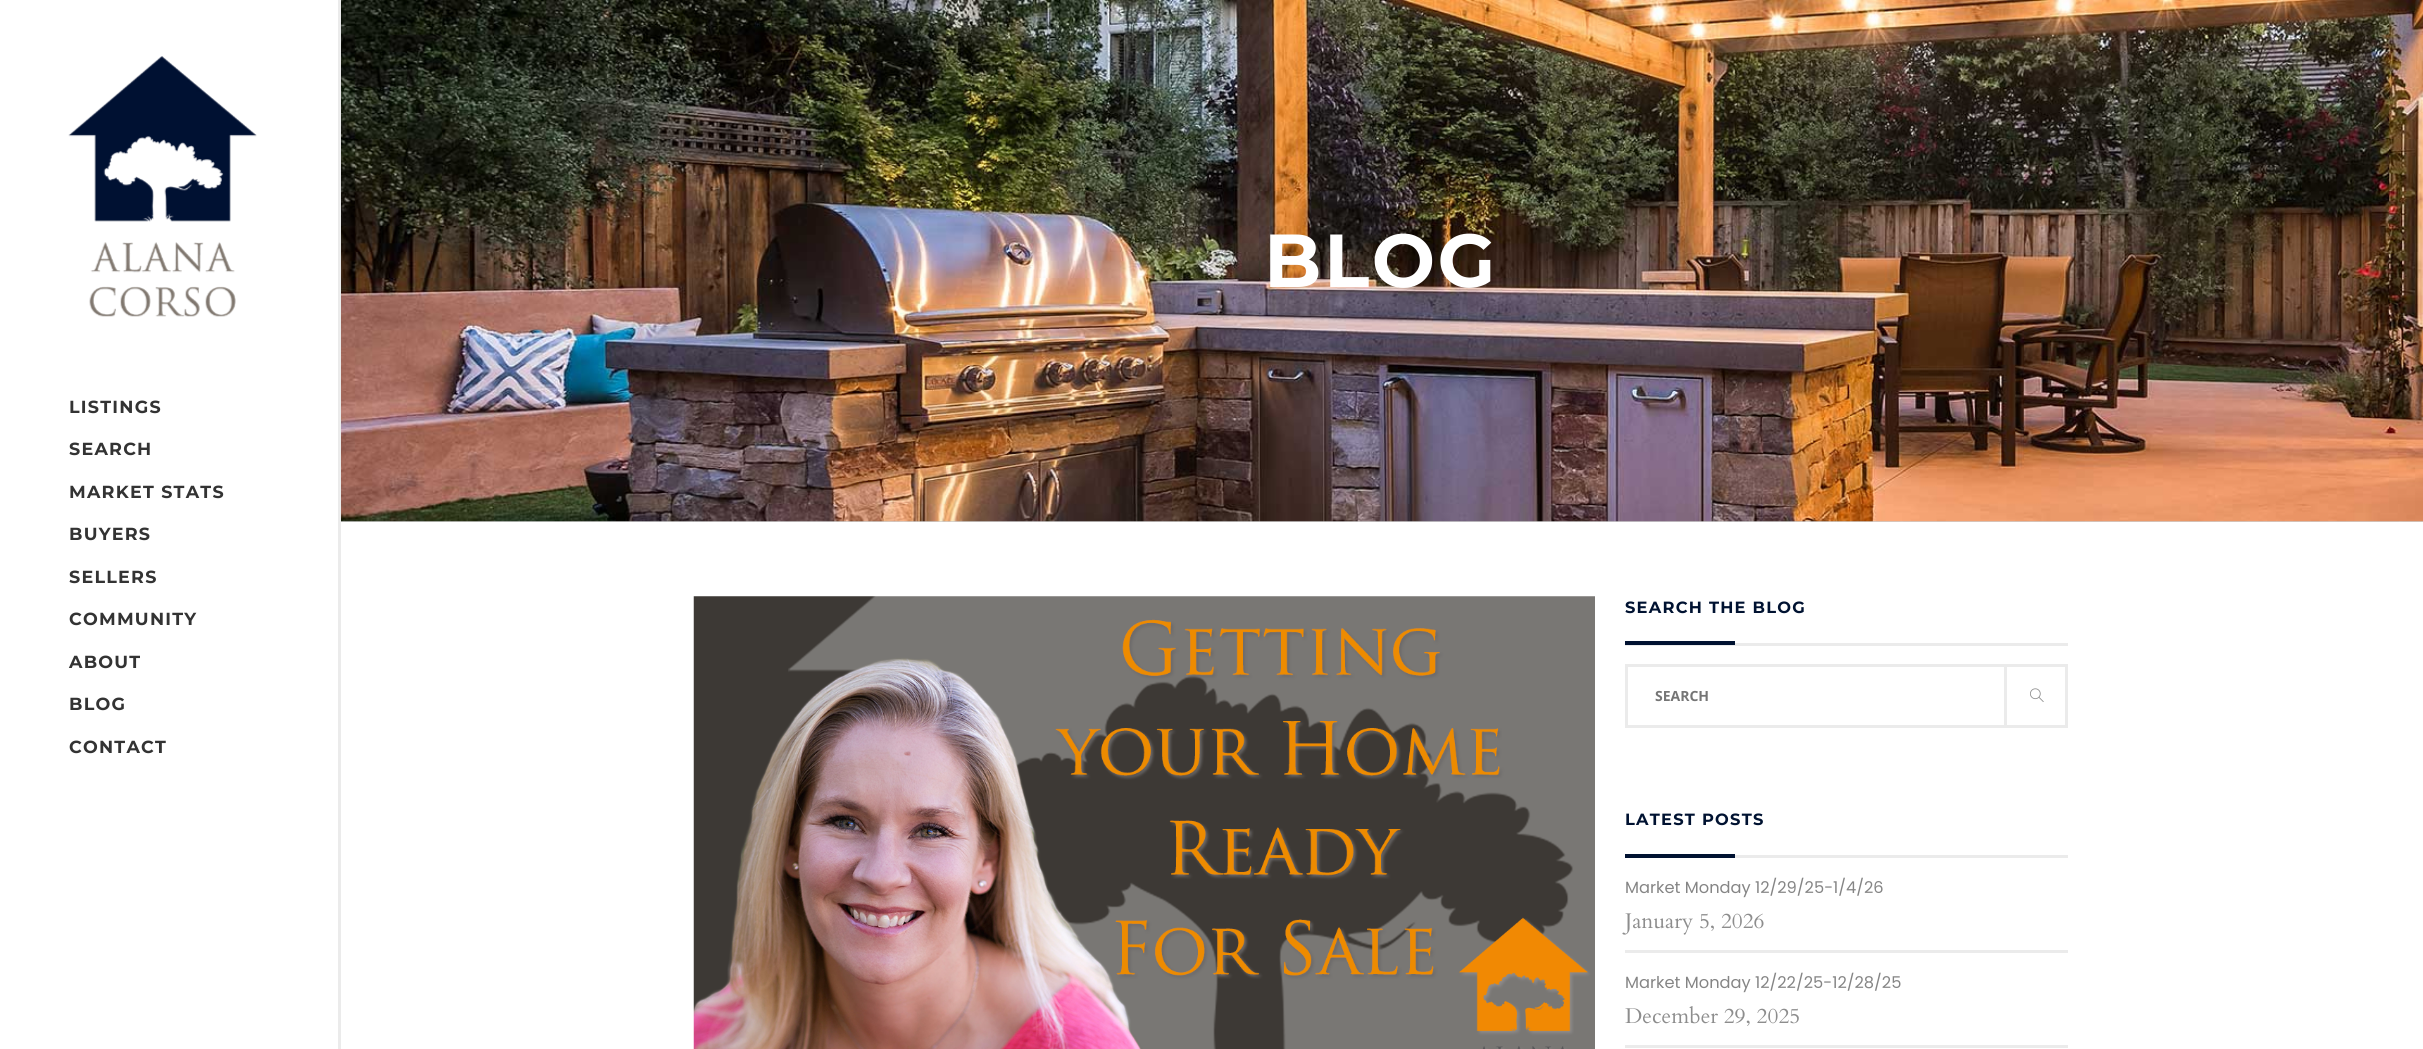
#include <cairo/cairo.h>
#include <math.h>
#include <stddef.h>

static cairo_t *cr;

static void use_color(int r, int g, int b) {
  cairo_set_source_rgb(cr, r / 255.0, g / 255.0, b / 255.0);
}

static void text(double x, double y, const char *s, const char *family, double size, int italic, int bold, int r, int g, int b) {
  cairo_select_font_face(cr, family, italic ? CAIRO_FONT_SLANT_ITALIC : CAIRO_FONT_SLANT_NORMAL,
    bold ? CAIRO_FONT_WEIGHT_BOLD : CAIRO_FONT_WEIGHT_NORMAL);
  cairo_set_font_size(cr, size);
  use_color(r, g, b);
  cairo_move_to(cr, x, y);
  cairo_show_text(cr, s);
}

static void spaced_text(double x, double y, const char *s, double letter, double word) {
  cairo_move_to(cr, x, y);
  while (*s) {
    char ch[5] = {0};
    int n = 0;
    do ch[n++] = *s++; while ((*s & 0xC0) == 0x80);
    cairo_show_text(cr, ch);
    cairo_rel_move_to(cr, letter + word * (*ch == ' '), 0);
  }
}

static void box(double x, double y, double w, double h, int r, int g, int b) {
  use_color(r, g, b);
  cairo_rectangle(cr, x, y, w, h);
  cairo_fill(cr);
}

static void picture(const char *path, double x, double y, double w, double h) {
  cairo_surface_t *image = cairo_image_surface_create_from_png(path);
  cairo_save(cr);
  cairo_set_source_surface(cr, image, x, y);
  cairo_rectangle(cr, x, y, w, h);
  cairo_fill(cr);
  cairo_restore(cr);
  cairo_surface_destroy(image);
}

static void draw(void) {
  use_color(255, 255, 255);
  cairo_paint(cr);
  picture("img_01.png", 68, 56, 189, 261);
  box(338, 0, 3, 1049, 235, 235, 235);
  picture("img_02.png", 341, 521, 2082, 1);
  picture("img_03.png", 341, 0, 2082, 522);
  picture("img_04.png", 693, 596, 902, 453);
  box(1625, 643, 443, 3, 235, 235, 235);
  box(1625, 641, 110, 4, 0, 18, 49);
  cairo_rectangle(cr, 1626.5, 665.5, 440, 61);
  use_color(235, 235, 235);
  cairo_set_line_width(cr, 3);
  cairo_stroke(cr);
  box(2004, 666, 3, 59, 235, 235, 235);
  picture("img_05.png", 2030, 688, 14, 14);
  box(1735, 855, 333, 3, 235, 235, 235);
  box(1625, 854, 110, 4, 0, 18, 49);
  box(1625, 950, 443, 3, 235, 235, 235);
  box(1625, 1045, 443, 3, 235, 235, 235);
  cairo_select_font_face(cr, "Montserrat", CAIRO_FONT_SLANT_NORMAL, CAIRO_FONT_WEIGHT_BOLD);
  cairo_set_font_size(cr, 17.5);
  use_color(51, 51, 51);
  spaced_text(69, 413, "LISTINGS", 1.25, 0);
  spaced_text(69, 455, "SEARCH", 1.25, 0);
  spaced_text(69, 498, "MARKET STATS", 1.25, 0);
  spaced_text(69, 540, "BUYERS", 1.25, 0);
  spaced_text(69, 583, "SELLERS", 1.25, 0);
  spaced_text(69, 625, "COMMUNITY", 1.25, 0);
  spaced_text(69, 668, "ABOUT", 1.25, 0);
  spaced_text(69, 710, "BLOG", 1.25, 0);
  spaced_text(69, 753, "CONTACT", 1.25, 0);
  cairo_set_font_size(cr, 75);
  use_color(255, 255, 255);
  spaced_text(1264, 287, "BLOG", 2.5, 0);
  cairo_set_font_size(cr, 16.25);
  use_color(0, 18, 49);
  spaced_text(1625, 613, "SEARCH THE BLOG", 1.25, 0);
  text(1655, 701, "SEARCH", "Open Sans", 14, 0, 1, 117, 117, 117);
  cairo_select_font_face(cr, "Montserrat", CAIRO_FONT_SLANT_NORMAL, CAIRO_FONT_WEIGHT_BOLD);
  cairo_set_font_size(cr, 16.25);
  use_color(0, 18, 49);
  spaced_text(1625, 825, "LATEST POSTS", 1.25, 0);
  text(1625, 893, "Market Monday 12/29/25-1/4/26", "Poppins", 16.25, 0, 0, 133, 133, 133);
  text(1625, 928, "January 5, 2026", "Cardo", 21.25, 0, 0, 141, 141, 141);
  text(1625, 988, "Market Monday 12/22/25-12/28/25", "Poppins", 16.25, 0, 0, 133, 133, 133);
  text(1625, 1023, "December 29, 2025", "Cardo", 21.25, 0, 0, 141, 141, 141);
}

int main(void) {
  cairo_surface_t *surface = cairo_image_surface_create(CAIRO_FORMAT_RGB24, 2423, 1049);
  cr = cairo_create(surface);
  cairo_font_options_t *options = cairo_font_options_create();
  cairo_font_options_set_hint_metrics(options, CAIRO_HINT_METRICS_OFF);
  cairo_font_options_set_hint_style(options, CAIRO_HINT_STYLE_NONE);
  cairo_set_font_options(cr, options);
  cairo_set_miter_limit(cr, 4);
  draw();
  cairo_surface_write_to_png(surface, "out.png");
  cairo_font_options_destroy(options);
  cairo_destroy(cr);
  cairo_surface_destroy(surface);
  return 0;
}
